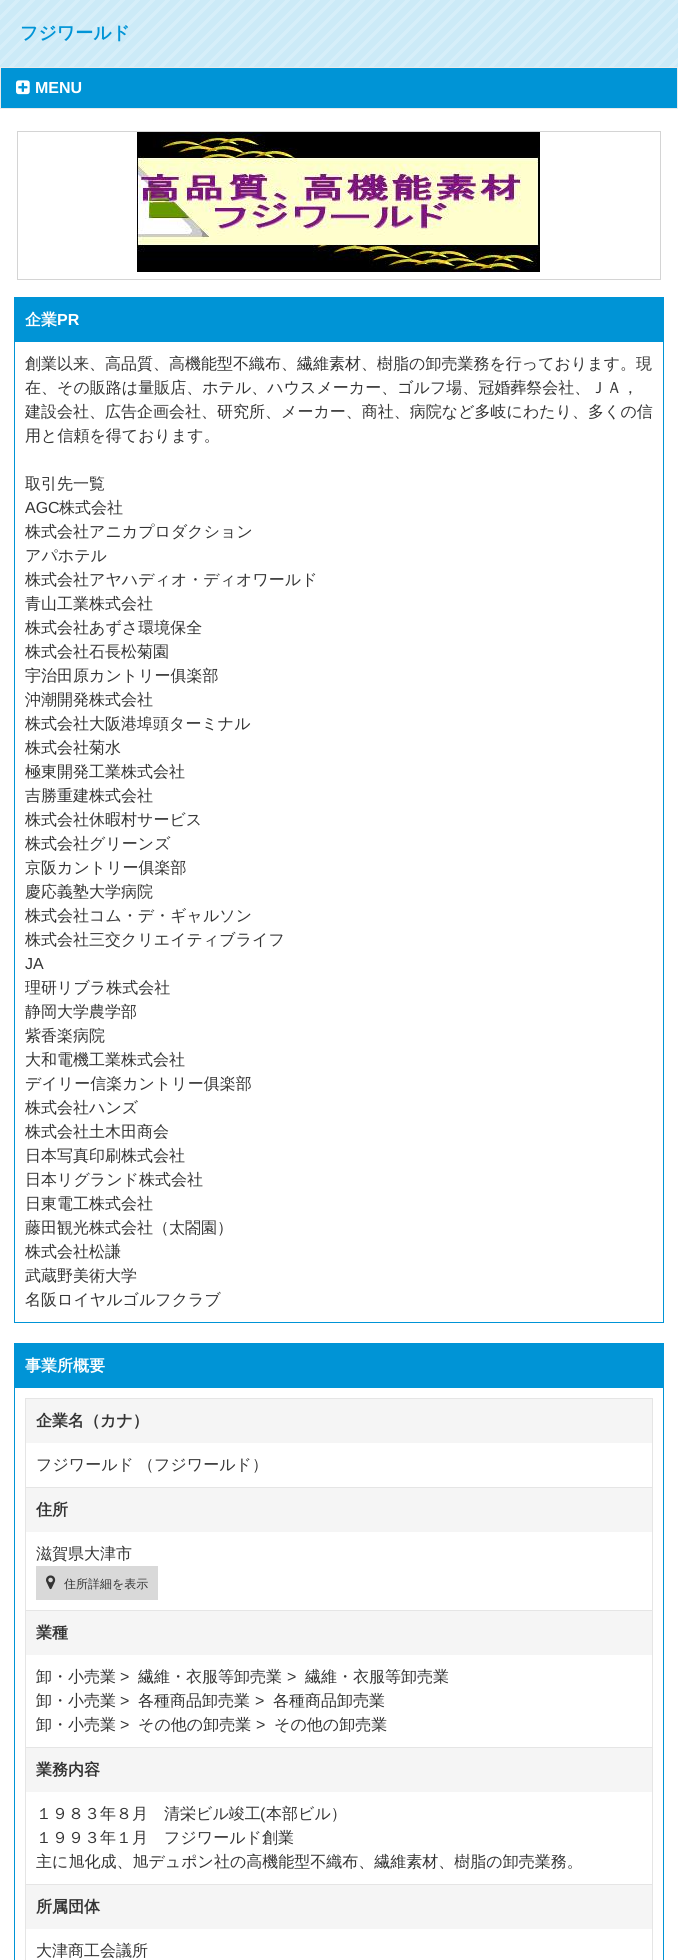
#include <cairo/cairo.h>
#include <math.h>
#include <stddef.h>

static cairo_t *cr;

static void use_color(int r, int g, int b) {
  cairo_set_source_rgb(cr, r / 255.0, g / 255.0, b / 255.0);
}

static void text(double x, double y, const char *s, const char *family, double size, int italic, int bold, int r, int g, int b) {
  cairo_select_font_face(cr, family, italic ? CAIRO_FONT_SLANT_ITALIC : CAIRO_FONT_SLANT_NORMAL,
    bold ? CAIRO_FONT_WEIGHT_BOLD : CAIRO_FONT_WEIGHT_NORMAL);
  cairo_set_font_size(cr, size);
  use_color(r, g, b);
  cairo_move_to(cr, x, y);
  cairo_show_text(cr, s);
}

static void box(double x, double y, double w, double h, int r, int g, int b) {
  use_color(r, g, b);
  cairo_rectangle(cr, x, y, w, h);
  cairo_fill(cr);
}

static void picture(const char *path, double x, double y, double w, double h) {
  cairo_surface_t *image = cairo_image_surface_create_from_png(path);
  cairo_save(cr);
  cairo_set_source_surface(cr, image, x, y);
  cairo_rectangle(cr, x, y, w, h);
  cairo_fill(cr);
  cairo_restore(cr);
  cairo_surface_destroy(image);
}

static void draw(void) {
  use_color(255, 255, 255);
  cairo_paint(cr);
  picture("img_01.png", 0, 0, 678, 67);
  use_color(0, 148, 214);
  cairo_rectangle(cr, 0.5, 67.5, 677, 41);
  cairo_fill_preserve(cr);
  use_color(235, 235, 235);
  cairo_set_line_width(cr, 1);
  cairo_stroke(cr);
  picture("img_02.png", 16, 80, 14, 15);
  cairo_rectangle(cr, 17.5, 131.5, 643, 148);
  use_color(212, 212, 212);
  cairo_stroke(cr);
  picture("img_03.png", 137, 132, 403, 140);
  cairo_rectangle(cr, 14.5, 297.5, 649, 1025);
  use_color(0, 148, 214);
  cairo_stroke(cr);
  box(15, 298, 648, 44, 0, 148, 214);
  cairo_rectangle(cr, 14.5, 1343.5, 649, 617);
  cairo_stroke(cr);
  box(15, 1344, 648, 44, 0, 148, 214);
  box(25, 1398, 628, 1, 229, 229, 229);
  box(652, 1398, 1, 89, 229, 229, 229);
  box(25, 1398, 1, 89, 229, 229, 229);
  box(26, 1399, 626, 44, 245, 245, 245);
  box(25, 1487, 628, 1, 229, 229, 229);
  box(652, 1487, 1, 123, 229, 229, 229);
  box(25, 1487, 1, 123, 229, 229, 229);
  box(26, 1488, 626, 44, 245, 245, 245);
  box(36, 1566, 122, 34, 217, 217, 217);
  picture("img_04.png", 46, 1575, 10, 15);
  box(25, 1610, 628, 1, 229, 229, 229);
  box(652, 1610, 1, 137, 229, 229, 229);
  box(25, 1610, 1, 137, 229, 229, 229);
  box(26, 1611, 626, 44, 245, 245, 245);
  box(25, 1747, 628, 1, 229, 229, 229);
  box(652, 1747, 1, 137, 229, 229, 229);
  box(25, 1747, 1, 137, 229, 229, 229);
  box(26, 1748, 626, 44, 245, 245, 245);
  cairo_rectangle(cr, 25.5, 1884.5, 627, 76);
  use_color(229, 229, 229);
  cairo_stroke(cr);
  box(26, 1885, 626, 44, 245, 245, 245);
  text(20, 39, "フジワールド", "WenQuanYi Zen Hei", 18, 0, 1, 0, 148, 214);
  text(35, 93, "MENU", "Liberation Sans", 16, 0, 1, 255, 255, 255);
  text(25, 325, "企業", "WenQuanYi Zen Hei", 16, 0, 1, 255, 255, 255);
  text(57, 325, "PR", "Liberation Sans", 16, 0, 1, 255, 255, 255);
  text(25, 369, "創業以来、高品質、高機能型不織布、繊維素材、樹脂の卸売業務を行っております。現", "WenQuanYi Zen Hei Medium", 16, 0, 0, 52, 52, 52);
  text(25, 393, "在、その販路は量販店、ホテル、ハウスメーカー、ゴルフ場、冠婚葬祭会社、ＪＡ，", "WenQuanYi Zen Hei Medium", 16, 0, 0, 52, 52, 52);
  text(25, 417, "建設会社、広告企画会社、研究所、メーカー、商社、病院など多岐にわたり、多くの信", "WenQuanYi Zen Hei Medium", 16, 0, 0, 52, 52, 52);
  text(25, 441, "用と信頼を得ております。", "WenQuanYi Zen Hei Medium", 16, 0, 0, 52, 52, 52);
  text(25, 489, "取引先一覧", "WenQuanYi Zen Hei Medium", 16, 0, 0, 52, 52, 52);
  text(25, 513, "AGC", "Liberation Sans", 16, 0, 0, 52, 52, 52);
  text(59, 513, "株式会社", "WenQuanYi Zen Hei Medium", 16, 0, 0, 52, 52, 52);
  text(25, 537, "株式会社アニカプロダクション", "WenQuanYi Zen Hei Medium", 16, 0, 0, 52, 52, 52);
  text(25, 561, "アパホテル", "WenQuanYi Zen Hei Medium", 16, 0, 0, 52, 52, 52);
  text(25, 585, "株式会社アヤハディオ・ディオワールド", "WenQuanYi Zen Hei Medium", 16, 0, 0, 52, 52, 52);
  text(25, 609, "青山工業株式会社", "WenQuanYi Zen Hei Medium", 16, 0, 0, 52, 52, 52);
  text(25, 633, "株式会社あずさ環境保全", "WenQuanYi Zen Hei Medium", 16, 0, 0, 52, 52, 52);
  text(25, 657, "株式会社石長松菊園", "WenQuanYi Zen Hei Medium", 16, 0, 0, 52, 52, 52);
  text(25, 681, "宇治田原カントリー俱楽部", "WenQuanYi Zen Hei Medium", 16, 0, 0, 52, 52, 52);
  text(25, 705, "沖潮開発株式会社", "WenQuanYi Zen Hei Medium", 16, 0, 0, 52, 52, 52);
  text(25, 729, "株式会社大阪港埠頭ターミナル", "WenQuanYi Zen Hei Medium", 16, 0, 0, 52, 52, 52);
  text(25, 753, "株式会社菊水", "WenQuanYi Zen Hei Medium", 16, 0, 0, 52, 52, 52);
  text(25, 777, "極東開発工業株式会社", "WenQuanYi Zen Hei Medium", 16, 0, 0, 52, 52, 52);
  text(25, 801, "吉勝重建株式会社", "WenQuanYi Zen Hei Medium", 16, 0, 0, 52, 52, 52);
  text(25, 825, "株式会社休暇村サービス", "WenQuanYi Zen Hei Medium", 16, 0, 0, 52, 52, 52);
  text(25, 849, "株式会社グリーンズ", "WenQuanYi Zen Hei Medium", 16, 0, 0, 52, 52, 52);
  text(25, 873, "京阪カントリー俱楽部", "WenQuanYi Zen Hei Medium", 16, 0, 0, 52, 52, 52);
  text(25, 897, "慶応義塾大学病院", "WenQuanYi Zen Hei Medium", 16, 0, 0, 52, 52, 52);
  text(25, 921, "株式会社コム・デ・ギャルソン", "WenQuanYi Zen Hei Medium", 16, 0, 0, 52, 52, 52);
  text(25, 945, "株式会社三交クリエイティブライフ", "WenQuanYi Zen Hei Medium", 16, 0, 0, 52, 52, 52);
  text(25, 969, "JA", "Liberation Sans", 16, 0, 0, 52, 52, 52);
  text(25, 993, "理研リブラ株式会社", "WenQuanYi Zen Hei Medium", 16, 0, 0, 52, 52, 52);
  text(25, 1017, "静岡大学農学部", "WenQuanYi Zen Hei Medium", 16, 0, 0, 52, 52, 52);
  text(25, 1041, "紫香楽病院", "WenQuanYi Zen Hei Medium", 16, 0, 0, 52, 52, 52);
  text(25, 1065, "大和電機工業株式会社", "WenQuanYi Zen Hei Medium", 16, 0, 0, 52, 52, 52);
  text(25, 1089, "デイリー信楽カントリー俱楽部", "WenQuanYi Zen Hei Medium", 16, 0, 0, 52, 52, 52);
  text(25, 1113, "株式会社ハンズ", "WenQuanYi Zen Hei Medium", 16, 0, 0, 52, 52, 52);
  text(25, 1137, "株式会社土木田商会", "WenQuanYi Zen Hei Medium", 16, 0, 0, 52, 52, 52);
  text(25, 1161, "日本写真印刷株式会社", "WenQuanYi Zen Hei Medium", 16, 0, 0, 52, 52, 52);
  text(25, 1185, "日本リグランド株式会社", "WenQuanYi Zen Hei Medium", 16, 0, 0, 52, 52, 52);
  text(25, 1209, "日東電工株式会社", "WenQuanYi Zen Hei Medium", 16, 0, 0, 52, 52, 52);
  text(25, 1233, "藤田観光株式会社（太閤園）", "WenQuanYi Zen Hei Medium", 16, 0, 0, 52, 52, 52);
  text(25, 1257, "株式会社松謙", "WenQuanYi Zen Hei Medium", 16, 0, 0, 52, 52, 52);
  text(25, 1281, "武蔵野美術大学", "WenQuanYi Zen Hei Medium", 16, 0, 0, 52, 52, 52);
  text(25, 1305, "名阪ロイヤルゴルフクラブ", "WenQuanYi Zen Hei Medium", 16, 0, 0, 52, 52, 52);
  text(25, 1371, "事業所概要", "WenQuanYi Zen Hei", 16, 0, 1, 255, 255, 255);
  text(36, 1426, "企業名（カナ）", "WenQuanYi Zen Hei", 16, 0, 1, 52, 52, 52);
  text(36, 1470, "フジワールド", "WenQuanYi Zen Hei Medium", 16, 0, 0, 52, 52, 52);
  text(138, 1470, "（フジワールド）", "WenQuanYi Zen Hei Medium", 16, 0, 0, 52, 52, 52);
  text(36, 1515, "住所", "WenQuanYi Zen Hei", 16, 0, 1, 52, 52, 52);
  text(36, 1559, "滋賀県大津市", "WenQuanYi Zen Hei Medium", 16, 0, 0, 52, 52, 52);
  text(64, 1588, "住所詳細を表示", "WenQuanYi Zen Hei Medium", 12, 0, 0, 52, 52, 52);
  text(36, 1638, "業種", "WenQuanYi Zen Hei", 16, 0, 1, 52, 52, 52);
  text(36, 1682, "卸・小売業", "WenQuanYi Zen Hei Medium", 16, 0, 0, 52, 52, 52);
  text(120, 1682, ">", "Liberation Sans", 16, 0, 0, 52, 52, 52);
  text(138, 1682, "繊維・衣服等卸売業", "WenQuanYi Zen Hei Medium", 16, 0, 0, 52, 52, 52);
  text(287, 1682, ">", "Liberation Sans", 16, 0, 0, 52, 52, 52);
  text(305, 1682, "繊維・衣服等卸売業", "WenQuanYi Zen Hei Medium", 16, 0, 0, 52, 52, 52);
  text(36, 1706, "卸・小売業", "WenQuanYi Zen Hei Medium", 16, 0, 0, 52, 52, 52);
  text(120, 1706, ">", "Liberation Sans", 16, 0, 0, 52, 52, 52);
  text(138, 1706, "各種商品卸売業", "WenQuanYi Zen Hei Medium", 16, 0, 0, 52, 52, 52);
  text(255, 1706, ">", "Liberation Sans", 16, 0, 0, 52, 52, 52);
  text(273, 1706, "各種商品卸売業", "WenQuanYi Zen Hei Medium", 16, 0, 0, 52, 52, 52);
  text(36, 1730, "卸・小売業", "WenQuanYi Zen Hei Medium", 16, 0, 0, 52, 52, 52);
  text(120, 1730, ">", "Liberation Sans", 16, 0, 0, 52, 52, 52);
  text(138, 1730, "その他の卸売業", "WenQuanYi Zen Hei Medium", 16, 0, 0, 52, 52, 52);
  text(256, 1730, ">", "Liberation Sans", 16, 0, 0, 52, 52, 52);
  text(274, 1730, "その他の卸売業", "WenQuanYi Zen Hei Medium", 16, 0, 0, 52, 52, 52);
  text(36, 1775, "業務内容", "WenQuanYi Zen Hei", 16, 0, 1, 52, 52, 52);
  text(36, 1819, "１９８３年８月　清栄ビル竣工", "WenQuanYi Zen Hei Medium", 16, 0, 0, 52, 52, 52);
  text(260, 1819, "(", "Liberation Sans", 16, 0, 0, 52, 52, 52);
  text(266, 1819, "本部ビル）", "WenQuanYi Zen Hei Medium", 16, 0, 0, 52, 52, 52);
  text(36, 1843, "１９９３年１月　フジワールド創業", "WenQuanYi Zen Hei Medium", 16, 0, 0, 52, 52, 52);
  text(36, 1867, "主に旭化成、旭デュポン社の高機能型不織布、繊維素材、樹脂の卸売業務。", "WenQuanYi Zen Hei Medium", 16, 0, 0, 52, 52, 52);
  text(36, 1912, "所属団体", "WenQuanYi Zen Hei", 16, 0, 1, 52, 52, 52);
  text(36, 1956, "大津商工会議所", "WenQuanYi Zen Hei Medium", 16, 0, 0, 52, 52, 52);
}

int main(void) {
  cairo_surface_t *surface = cairo_image_surface_create(CAIRO_FORMAT_RGB24, 678, 1960);
  cr = cairo_create(surface);
  cairo_font_options_t *options = cairo_font_options_create();
  cairo_font_options_set_hint_metrics(options, CAIRO_HINT_METRICS_OFF);
  cairo_font_options_set_hint_style(options, CAIRO_HINT_STYLE_NONE);
  cairo_set_font_options(cr, options);
  cairo_set_miter_limit(cr, 4);
  draw();
  cairo_surface_write_to_png(surface, "out.png");
  cairo_font_options_destroy(options);
  cairo_destroy(cr);
  cairo_surface_destroy(surface);
  return 0;
}
